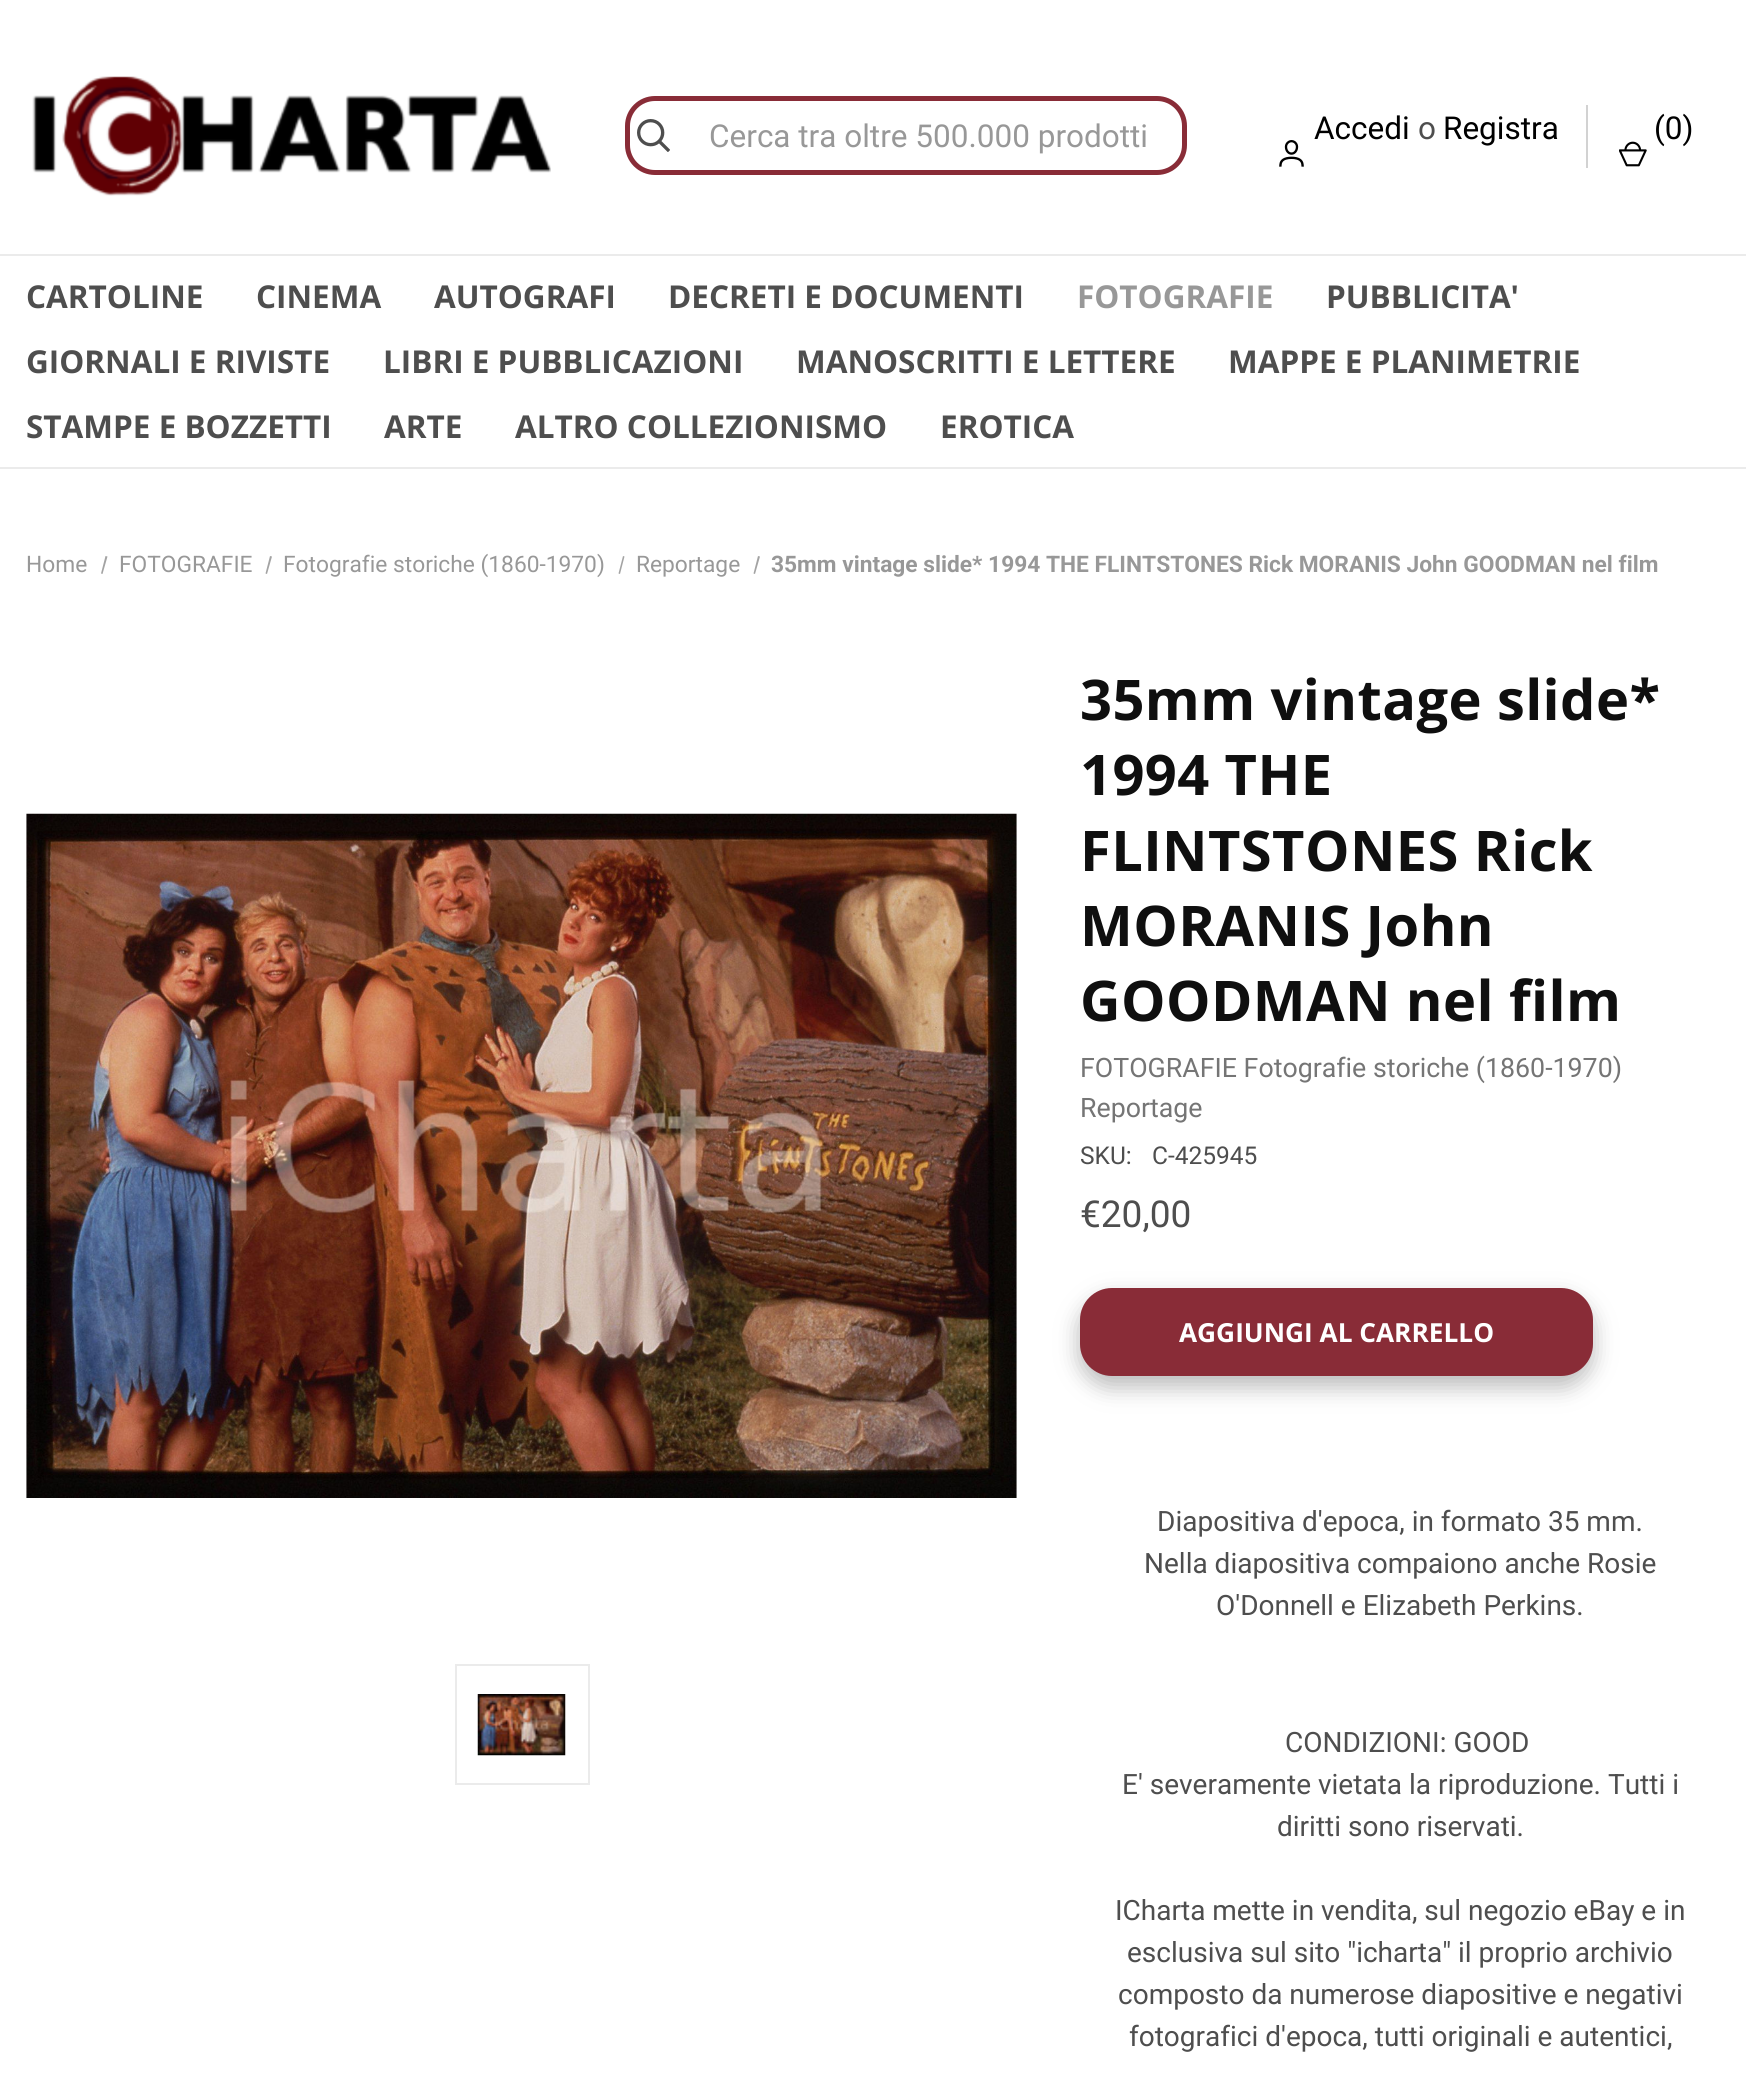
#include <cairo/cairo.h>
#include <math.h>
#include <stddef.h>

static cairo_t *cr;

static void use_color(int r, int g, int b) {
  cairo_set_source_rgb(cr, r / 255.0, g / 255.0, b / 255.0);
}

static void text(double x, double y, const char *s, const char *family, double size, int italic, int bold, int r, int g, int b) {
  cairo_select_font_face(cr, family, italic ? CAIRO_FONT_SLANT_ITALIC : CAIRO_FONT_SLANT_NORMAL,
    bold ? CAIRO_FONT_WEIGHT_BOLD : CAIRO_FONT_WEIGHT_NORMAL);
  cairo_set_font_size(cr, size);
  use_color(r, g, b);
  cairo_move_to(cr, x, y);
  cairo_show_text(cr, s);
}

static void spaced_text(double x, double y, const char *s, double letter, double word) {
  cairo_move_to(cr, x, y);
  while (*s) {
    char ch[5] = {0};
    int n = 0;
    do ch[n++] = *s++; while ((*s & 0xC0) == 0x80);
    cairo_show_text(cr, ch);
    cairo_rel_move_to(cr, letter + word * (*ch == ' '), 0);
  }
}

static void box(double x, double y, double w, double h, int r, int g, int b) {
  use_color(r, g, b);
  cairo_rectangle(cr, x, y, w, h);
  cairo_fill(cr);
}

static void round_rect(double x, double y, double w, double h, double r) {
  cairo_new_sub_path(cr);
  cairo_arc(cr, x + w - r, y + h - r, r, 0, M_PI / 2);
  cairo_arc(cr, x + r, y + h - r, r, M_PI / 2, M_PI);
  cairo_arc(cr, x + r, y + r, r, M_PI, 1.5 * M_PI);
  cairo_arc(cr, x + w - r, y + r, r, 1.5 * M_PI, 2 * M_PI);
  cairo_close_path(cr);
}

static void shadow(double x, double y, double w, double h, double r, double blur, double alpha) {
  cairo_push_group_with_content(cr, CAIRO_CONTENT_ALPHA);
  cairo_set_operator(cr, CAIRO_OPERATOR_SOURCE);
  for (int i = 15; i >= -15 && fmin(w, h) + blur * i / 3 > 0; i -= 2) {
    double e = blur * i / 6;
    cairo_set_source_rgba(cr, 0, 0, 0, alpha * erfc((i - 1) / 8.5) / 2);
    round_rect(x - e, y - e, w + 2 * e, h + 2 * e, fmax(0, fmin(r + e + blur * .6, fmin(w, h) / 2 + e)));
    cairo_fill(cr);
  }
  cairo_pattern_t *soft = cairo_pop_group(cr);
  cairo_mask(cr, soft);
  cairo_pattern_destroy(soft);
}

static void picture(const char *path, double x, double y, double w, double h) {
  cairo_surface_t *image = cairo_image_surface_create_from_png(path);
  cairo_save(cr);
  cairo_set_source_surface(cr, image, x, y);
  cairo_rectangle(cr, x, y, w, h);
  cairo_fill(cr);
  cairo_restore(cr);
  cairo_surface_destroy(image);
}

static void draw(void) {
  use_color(255, 255, 255);
  cairo_paint(cr);
  picture("img_01.png", 32, 76, 519, 120);
  round_rect(627.5, 98.5, 557, 74, 27.5);
  use_color(137, 44, 55);
  cairo_set_line_width(cr, 5);
  cairo_stroke(cr);
  picture("img_02.png", 637, 119, 33, 33);
  picture("img_03.png", 1279, 140, 25, 27);
  box(1586, 105, 2, 63, 210, 210, 210);
  picture("img_04.png", 1619, 141, 28, 26);
  box(0, 254, 1746, 2, 235, 235, 235);
  box(0, 467, 1746, 2, 235, 235, 235);
  use_color(163, 163, 163);
  cairo_new_path(cr);
  cairo_move_to(cr, 105.5, 556);
  cairo_line_to(cr, 107.5, 556.5);
  cairo_line_to(cr, 102.5, 574);
  cairo_line_to(cr, 101, 573.5);
  cairo_close_path(cr);
  cairo_fill(cr);
  cairo_new_path(cr);
  cairo_move_to(cr, 270, 556);
  cairo_line_to(cr, 272, 556.5);
  cairo_line_to(cr, 267, 574);
  cairo_line_to(cr, 265.5, 573.5);
  cairo_close_path(cr);
  cairo_fill(cr);
  cairo_new_path(cr);
  cairo_move_to(cr, 623, 556);
  cairo_line_to(cr, 624.5, 556.5);
  cairo_line_to(cr, 620, 574);
  cairo_line_to(cr, 618.5, 573.5);
  cairo_close_path(cr);
  cairo_fill(cr);
  cairo_new_path(cr);
  cairo_move_to(cr, 758, 556);
  cairo_line_to(cr, 760, 556.5);
  cairo_line_to(cr, 755, 574);
  cairo_line_to(cr, 753.5, 573.5);
  cairo_close_path(cr);
  cairo_fill(cr);
  picture("img_05.png", 26, 813, 991, 685);
  cairo_rectangle(cr, 456, 1665, 133, 119);
  use_color(235, 235, 235);
  cairo_set_line_width(cr, 2);
  cairo_stroke(cr);
  picture("img_06.png", 477, 1694, 89, 62);
  use_color(176, 176, 176);
  shadow(1078, 1297, 516, 91, 33, 10.5, 0.81);
  use_color(137, 44, 55);
  round_rect(1080, 1288, 513, 88, 32);
  cairo_fill(cr);
  text(709, 147, "Cerca tra oltre 500.000 prodotti", "Roboto", 31.5, 0, 0, 152, 152, 152);
  text(1314, 139, "Accedi", "Roboto", 31.5, 0, 0, 0, 0, 0);
  text(1418, 139, "o", "Roboto", 31.5, 0, 0, 78, 78, 78);
  text(1443, 139, "Registra", "Roboto", 31.5, 0, 0, 0, 0, 0);
  text(1654, 139, "(0)", "Roboto", 31.5, 0, 0, 0, 0, 0);
  text(26, 308, "CARTOLINE", "Open Sans", 31.5, 0, 1, 78, 78, 78);
  text(256, 308, "CINEMA", "Open Sans", 31.5, 0, 1, 78, 78, 78);
  text(434, 308, "AUTOGRAFI", "Open Sans", 31.5, 0, 1, 78, 78, 78);
  text(668, 308, "DECRETI E DOCUMENTI", "Open Sans", 31.5, 0, 1, 78, 78, 78);
  text(1077, 308, "FOTOGRAFIE", "Open Sans", 31.5, 0, 1, 152, 152, 152);
  text(1326, 308, "PUBBLICITA'", "Open Sans", 31.5, 0, 1, 78, 78, 78);
  text(26, 373, "GIORNALI E RIVISTE", "Open Sans", 31.5, 0, 1, 78, 78, 78);
  text(383, 373, "LIBRI E PUBBLICAZIONI", "Open Sans", 31.5, 0, 1, 78, 78, 78);
  text(796, 373, "MANOSCRITTI E LETTERE", "Open Sans", 31.5, 0, 1, 78, 78, 78);
  text(1228, 373, "MAPPE E PLANIMETRIE", "Open Sans", 31.5, 0, 1, 78, 78, 78);
  text(26, 438, "STAMPE E BOZZETTI", "Open Sans", 31.5, 0, 1, 78, 78, 78);
  text(384, 438, "ARTE", "Open Sans", 31.5, 0, 1, 78, 78, 78);
  text(515, 438, "ALTRO COLLEZIONISMO", "Open Sans", 31.5, 0, 1, 78, 78, 78);
  text(940, 438, "EROTICA", "Open Sans", 31.5, 0, 1, 78, 78, 78);
  text(26, 572, "Home", "Roboto", 22.75, 0, 0, 152, 152, 152);
  text(119, 572, "FOTOGRAFIE", "Roboto", 22.75, 0, 0, 152, 152, 152);
  text(283, 572, "Fotografie storiche (1860-1970)", "Roboto", 22.75, 0, 0, 152, 152, 152);
  text(636, 572, "Reportage", "Roboto", 22.75, 0, 0, 152, 152, 152);
  text(771, 572, "35mm vintage slide* 1994 THE FLINTSTONES Rick MORANIS John GOODMAN nel film", "Roboto", 22.75, 0, 1, 152, 152, 152);
  cairo_select_font_face(cr, "Open Sans", CAIRO_FONT_SLANT_NORMAL, CAIRO_FONT_WEIGHT_BOLD);
  cairo_set_font_size(cr, 56);
  use_color(15, 15, 15);
  spaced_text(1080, 720, "35mm vintage slide*", 0.4, 0);
  spaced_text(1080, 795, "1994 THE", 0.4, 0);
  spaced_text(1080, 871, "FLINTSTONES Rick", 0.4, 0);
  spaced_text(1080, 946, "MORANIS John", 0.4, 0);
  spaced_text(1080, 1021, "GOODMAN nel film", 0.4, 0);
  text(1080, 1077, "FOTOGRAFIE Fotografie storiche (1860-1970)", "Roboto", 26.75, 0, 0, 117, 117, 117);
  text(1080, 1117, "Reportage", "Roboto", 26.75, 0, 0, 117, 117, 117);
  text(1080, 1164, "SKU:", "Roboto", 24.5, 0, 0, 78, 78, 78);
  text(1152, 1164, "C-425945", "Roboto", 24.5, 0, 0, 78, 78, 78);
  text(1080, 1227, "€20,00", "Roboto", 37, 0, 0, 78, 78, 78);
  text(1179, 1342, "AGGIUNGI AL CARRELLO", "Open Sans", 26.25, 0, 1, 255, 255, 255);
  text(1157, 1531, "Diapositiva d'epoca, in formato 35 mm.", "Roboto", 28, 0, 0, 78, 78, 78);
  text(1144, 1573, "Nella diapositiva compaiono anche Rosie", "Roboto", 28, 0, 0, 78, 78, 78);
  text(1216, 1615, "O'Donnell e Elizabeth Perkins.", "Roboto", 28, 0, 0, 78, 78, 78);
  text(1285, 1752, "CONDIZIONI: GOOD", "Roboto", 28, 0, 0, 78, 78, 78);
  text(1122, 1794, "E' severamente vietata la riproduzione. Tutti i", "Roboto", 28, 0, 0, 78, 78, 78);
  text(1277, 1836, "diritti sono riservati.", "Roboto", 28, 0, 0, 78, 78, 78);
  text(1115, 1920, "ICharta mette in vendita, sul negozio eBay e in", "Roboto", 28, 0, 0, 78, 78, 78);
  text(1127, 1962, "esclusiva sul sito \"icharta\" il proprio archivio", "Roboto", 28, 0, 0, 78, 78, 78);
  text(1118, 2004, "composto da numerose diapositive e negativi", "Roboto", 28, 0, 0, 78, 78, 78);
  text(1129, 2046, "fotografici d'epoca, tutti originali e autentici,", "Roboto", 28, 0, 0, 78, 78, 78);
}

int main(void) {
  cairo_surface_t *surface = cairo_image_surface_create(CAIRO_FORMAT_RGB24, 1746, 2074);
  cr = cairo_create(surface);
  cairo_font_options_t *options = cairo_font_options_create();
  cairo_font_options_set_hint_metrics(options, CAIRO_HINT_METRICS_OFF);
  cairo_font_options_set_hint_style(options, CAIRO_HINT_STYLE_NONE);
  cairo_set_font_options(cr, options);
  cairo_set_miter_limit(cr, 4);
  draw();
  cairo_surface_write_to_png(surface, "out.png");
  cairo_font_options_destroy(options);
  cairo_destroy(cr);
  cairo_surface_destroy(surface);
  return 0;
}
